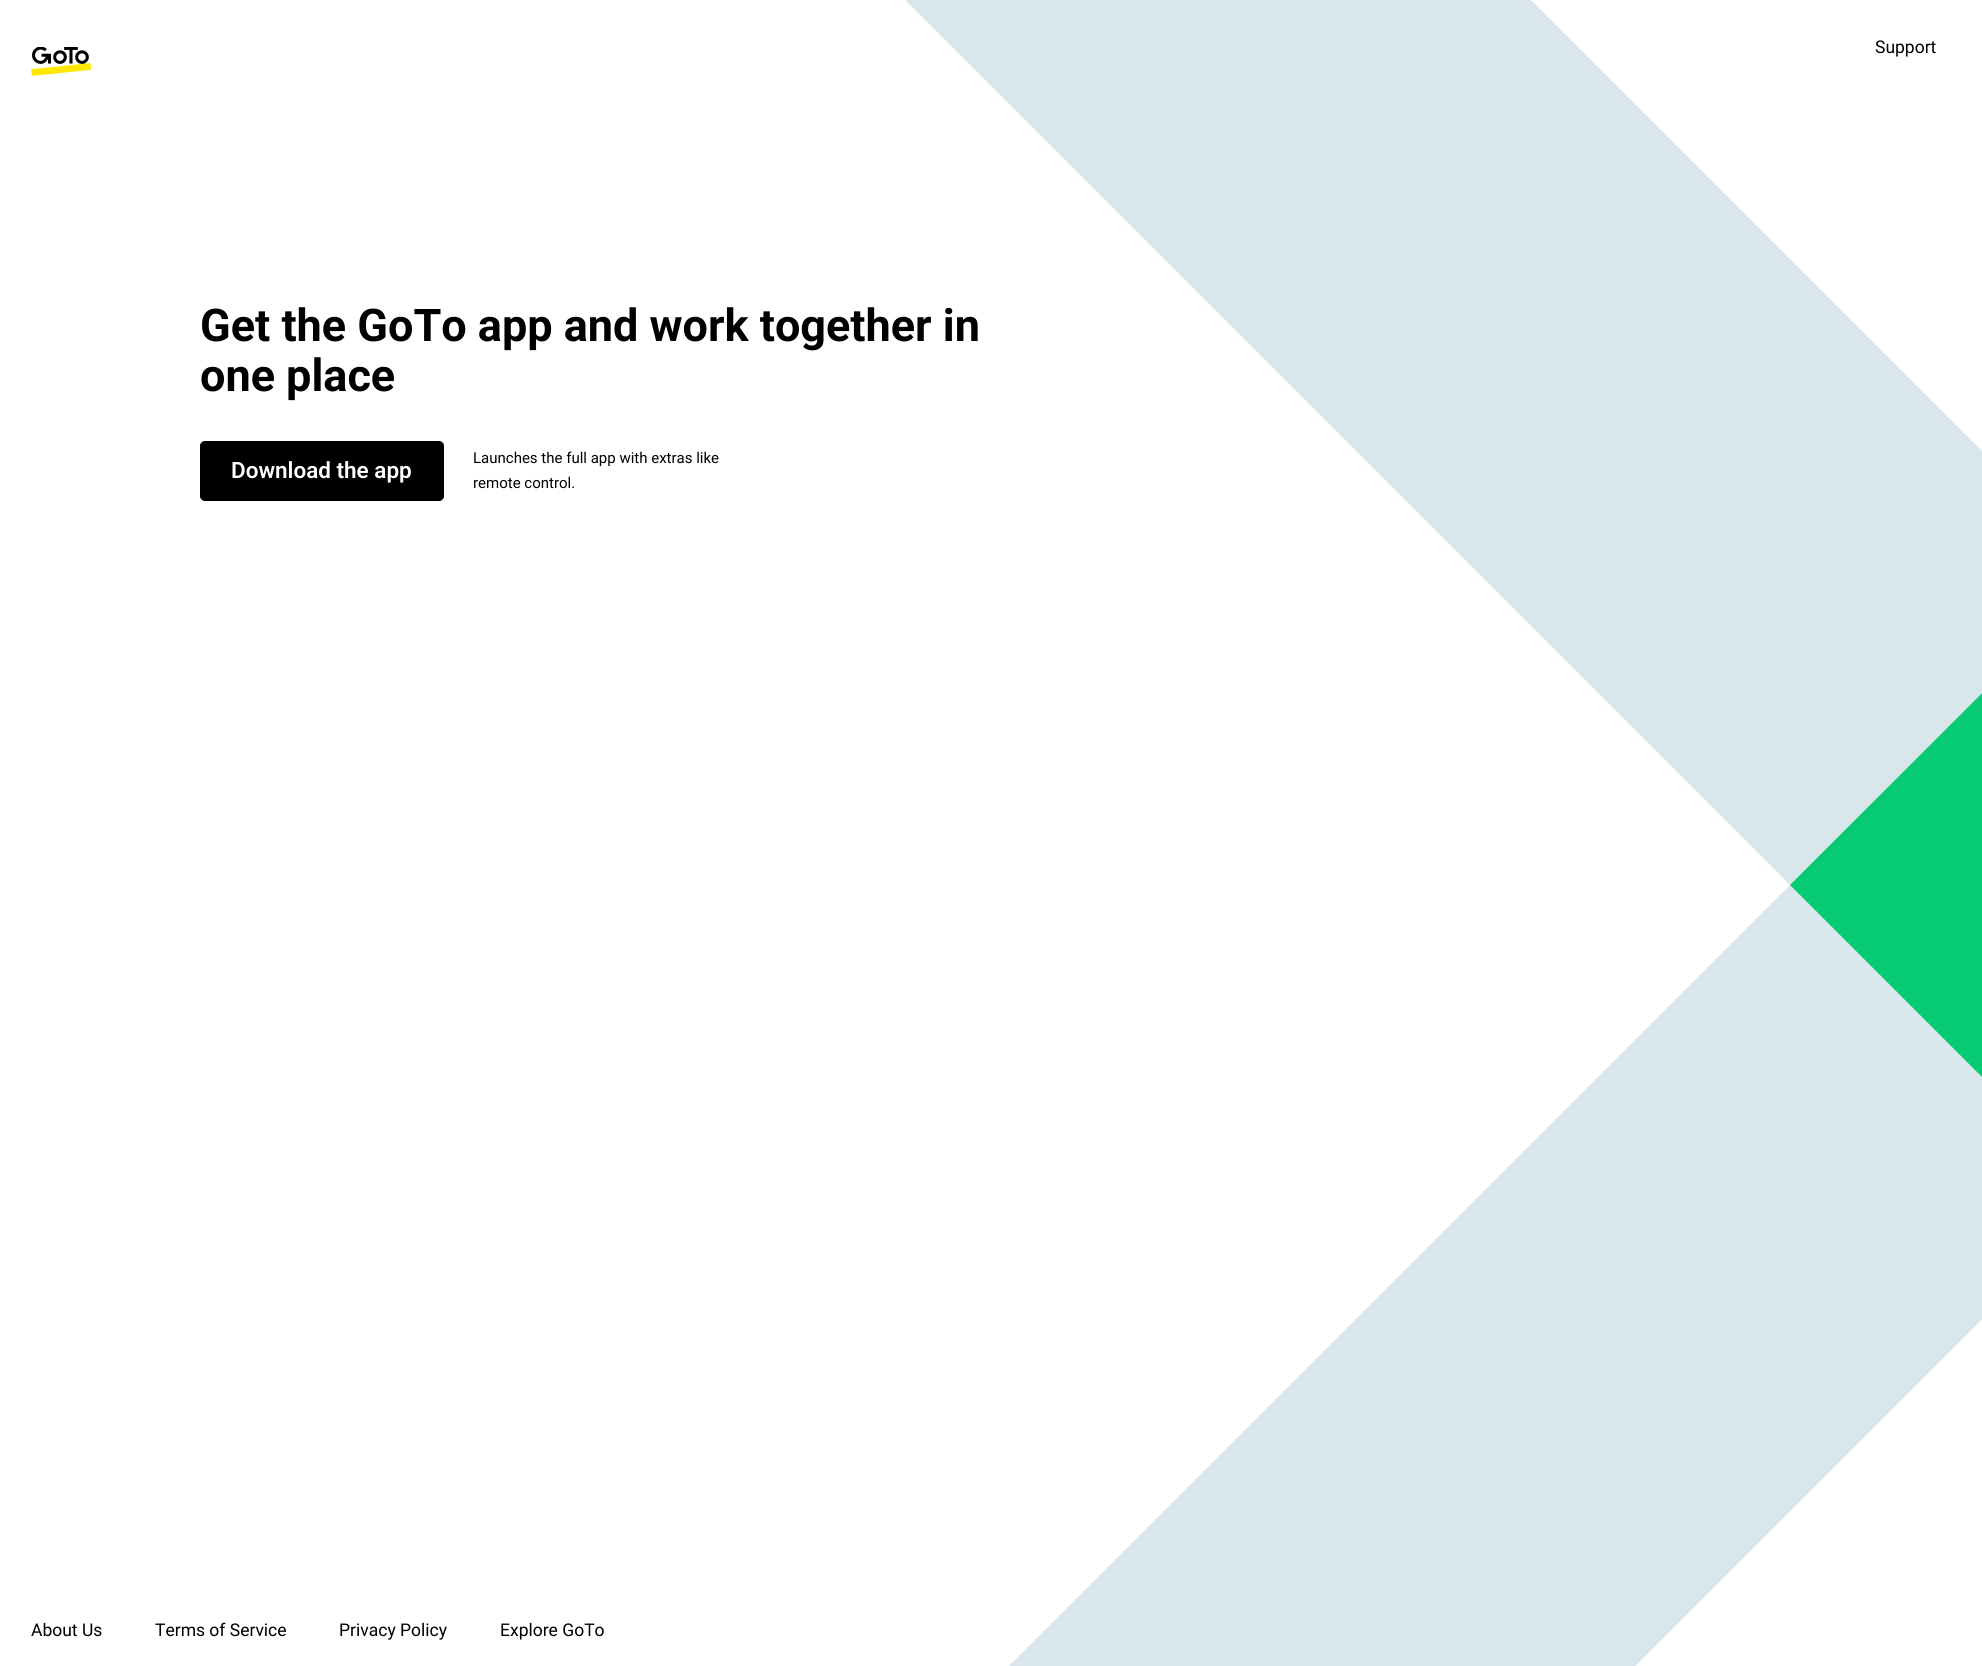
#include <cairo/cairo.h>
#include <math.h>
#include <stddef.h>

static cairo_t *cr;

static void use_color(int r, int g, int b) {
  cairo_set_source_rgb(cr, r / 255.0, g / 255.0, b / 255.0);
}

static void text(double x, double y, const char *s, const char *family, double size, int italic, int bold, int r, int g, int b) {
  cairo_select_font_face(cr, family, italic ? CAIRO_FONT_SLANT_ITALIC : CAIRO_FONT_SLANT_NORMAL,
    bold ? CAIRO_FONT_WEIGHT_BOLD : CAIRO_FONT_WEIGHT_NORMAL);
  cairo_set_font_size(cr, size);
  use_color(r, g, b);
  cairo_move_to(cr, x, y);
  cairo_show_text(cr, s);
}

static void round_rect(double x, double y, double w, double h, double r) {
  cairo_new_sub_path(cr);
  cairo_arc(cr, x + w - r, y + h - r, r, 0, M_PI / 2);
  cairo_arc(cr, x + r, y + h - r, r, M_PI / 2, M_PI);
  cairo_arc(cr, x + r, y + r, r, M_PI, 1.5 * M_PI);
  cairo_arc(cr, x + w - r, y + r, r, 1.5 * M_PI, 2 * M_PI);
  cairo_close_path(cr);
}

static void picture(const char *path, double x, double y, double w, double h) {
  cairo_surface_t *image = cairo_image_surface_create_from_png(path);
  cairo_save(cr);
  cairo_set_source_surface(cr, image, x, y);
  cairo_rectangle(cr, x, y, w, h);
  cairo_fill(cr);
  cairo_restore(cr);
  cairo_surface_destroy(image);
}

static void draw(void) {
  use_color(255, 255, 255);
  cairo_paint(cr);
  use_color(217, 230, 236);
  cairo_new_path(cr);
  cairo_move_to(cr, 888, 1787);
  cairo_line_to(cr, 1790, 885);
  cairo_line_to(cr, 888, -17);
  cairo_line_to(cr, 1201, -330);
  cairo_line_to(cr, 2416, 885);
  cairo_line_to(cr, 1201, 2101);
  cairo_close_path(cr);
  cairo_fill(cr);
  use_color(7, 203, 115);
  cairo_new_path(cr);
  cairo_move_to(cr, 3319, -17);
  cairo_line_to(cr, 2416, 885);
  cairo_line_to(cr, 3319, 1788);
  cairo_line_to(cr, 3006, 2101);
  cairo_line_to(cr, 1790, 885);
  cairo_line_to(cr, 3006, -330);
  cairo_close_path(cr);
  cairo_fill(cr);
  picture("img_01.png", 31, 47, 60, 29);
  use_color(0, 0, 0);
  round_rect(200.5, 441.5, 243, 59, 4.5);
  cairo_fill_preserve(cr);
  cairo_set_line_width(cr, 1);
  cairo_stroke(cr);
  text(1875, 53, "Support", "Roboto", 17.5, 0, 0, 0, 0, 0);
  text(200, 341, "Get the GoTo app and work together in", "Roboto", 45, 0, 1, 0, 0, 0);
  text(200, 391, "one place", "Roboto", 45, 0, 1, 0, 0, 0);
  text(231, 478, "Download the app", "Roboto SemiBold", 22.5, 0, 0, 255, 255, 255);
  text(473, 463, "Launches the full app with extras like", "Roboto", 15, 0, 0, 0, 0, 0);
  text(473, 488, "remote control.", "Roboto", 15, 0, 0, 0, 0, 0);
  text(31, 1636, "About Us", "Roboto", 17.5, 0, 0, 0, 0, 0);
  text(155, 1636, "Terms of Service", "Roboto", 17.5, 0, 0, 0, 0, 0);
  text(339, 1636, "Privacy Policy", "Roboto", 17.5, 0, 0, 0, 0, 0);
  text(500, 1636, "Explore GoTo", "Roboto", 17.5, 0, 0, 0, 0, 0);
}

int main(void) {
  cairo_surface_t *surface = cairo_image_surface_create(CAIRO_FORMAT_RGB24, 1982, 1666);
  cr = cairo_create(surface);
  cairo_font_options_t *options = cairo_font_options_create();
  cairo_font_options_set_hint_metrics(options, CAIRO_HINT_METRICS_OFF);
  cairo_font_options_set_hint_style(options, CAIRO_HINT_STYLE_NONE);
  cairo_set_font_options(cr, options);
  cairo_set_miter_limit(cr, 4);
  draw();
  cairo_surface_write_to_png(surface, "out.png");
  cairo_font_options_destroy(options);
  cairo_destroy(cr);
  cairo_surface_destroy(surface);
  return 0;
}
